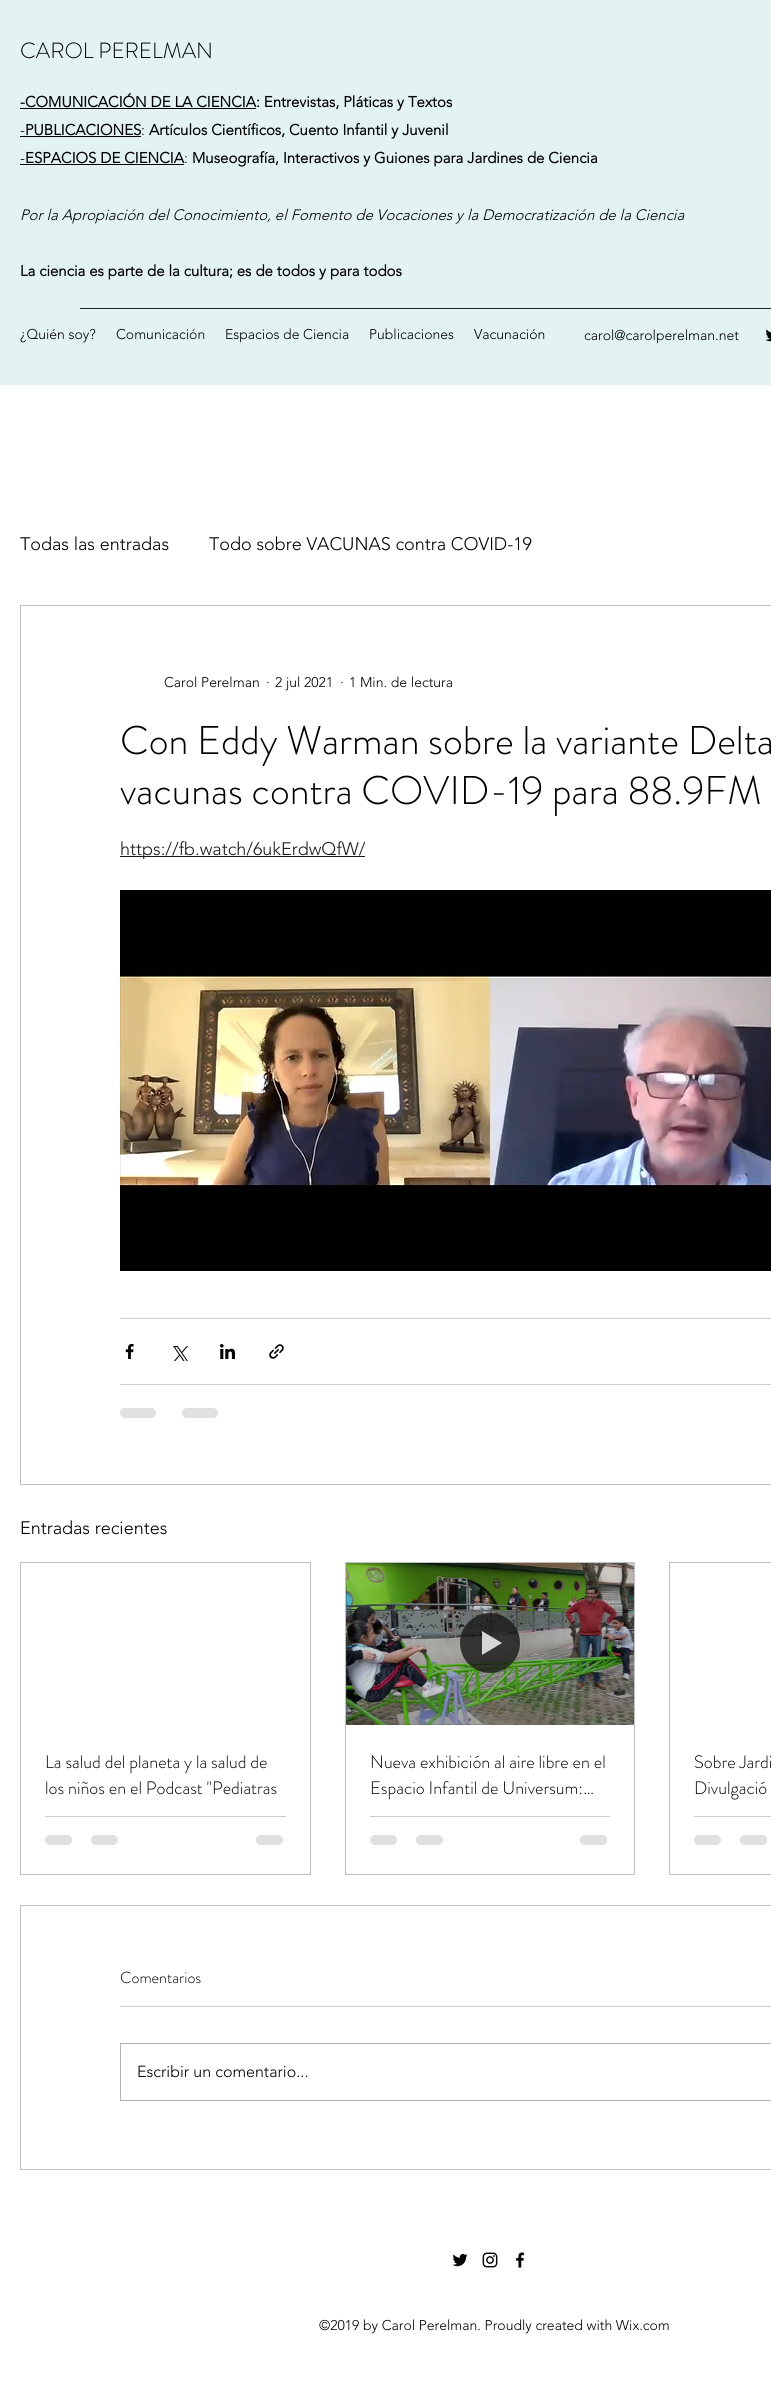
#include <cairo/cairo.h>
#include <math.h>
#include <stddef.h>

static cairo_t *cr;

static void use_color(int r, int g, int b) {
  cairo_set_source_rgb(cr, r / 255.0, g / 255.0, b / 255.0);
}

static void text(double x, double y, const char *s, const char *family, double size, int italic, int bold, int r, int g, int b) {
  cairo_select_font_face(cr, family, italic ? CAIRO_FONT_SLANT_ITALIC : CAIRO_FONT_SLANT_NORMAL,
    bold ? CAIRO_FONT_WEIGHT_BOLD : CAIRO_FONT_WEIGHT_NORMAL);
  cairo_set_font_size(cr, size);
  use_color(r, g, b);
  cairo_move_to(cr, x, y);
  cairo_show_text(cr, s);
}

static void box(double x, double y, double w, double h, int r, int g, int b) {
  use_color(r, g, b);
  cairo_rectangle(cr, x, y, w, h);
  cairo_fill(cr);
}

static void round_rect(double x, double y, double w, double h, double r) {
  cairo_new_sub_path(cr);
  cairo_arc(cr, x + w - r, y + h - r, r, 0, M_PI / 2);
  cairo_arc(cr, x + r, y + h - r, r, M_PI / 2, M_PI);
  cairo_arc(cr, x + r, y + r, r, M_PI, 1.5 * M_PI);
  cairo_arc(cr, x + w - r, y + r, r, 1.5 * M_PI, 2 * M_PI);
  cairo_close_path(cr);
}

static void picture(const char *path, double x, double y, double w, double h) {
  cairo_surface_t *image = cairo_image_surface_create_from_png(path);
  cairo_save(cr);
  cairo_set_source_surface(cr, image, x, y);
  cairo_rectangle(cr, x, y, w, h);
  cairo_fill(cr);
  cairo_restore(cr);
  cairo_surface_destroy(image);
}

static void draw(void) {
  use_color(255, 255, 255);
  cairo_paint(cr);
  box(0, 0, 771, 385, 227, 242, 243);
  box(20, 108, 236, 1, 0, 0, 0);
  box(20, 136, 121, 1, 0, 0, 0);
  box(20, 164, 164, 1, 0, 0, 0);
  box(80, 308, 691, 1, 34, 36, 36);
  picture("img_01.png", 765, 329, 6, 13);
  cairo_rectangle(cr, 20.5, 605.5, 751, 879);
  use_color(191, 191, 191);
  cairo_set_line_width(cr, 1);
  cairo_stroke(cr);
  box(120, 856, 245, 1, 25, 25, 25);
  picture("img_02.png", 120, 890, 651, 381);
  box(120, 1318, 651, 1, 204, 204, 204);
  picture("img_03.png", 125, 1344, 9, 15);
  picture("img_04.png", 173, 1346, 15, 15);
  picture("img_05.png", 220, 1344, 15, 15);
  picture("img_06.png", 269, 1344, 15, 15);
  box(120, 1384, 651, 1, 204, 204, 204);
  use_color(224, 224, 224);
  round_rect(120, 1408, 36, 10, 5);
  cairo_fill(cr);
  round_rect(182, 1408, 36, 10, 5);
  cairo_fill(cr);
  cairo_rectangle(cr, 20.5, 1562.5, 290, 312);
  use_color(191, 191, 191);
  cairo_stroke(cr);
  box(45, 1816, 241, 1, 204, 204, 204);
  use_color(224, 224, 224);
  round_rect(45, 1835, 27, 10, 5);
  cairo_fill(cr);
  round_rect(91, 1835, 27, 10, 5);
  cairo_fill(cr);
  round_rect(256, 1835, 27, 10, 5);
  cairo_fill(cr);
  cairo_rectangle(cr, 345.5, 1562.5, 289, 312);
  use_color(191, 191, 191);
  cairo_stroke(cr);
  picture("img_07.png", 346, 1563, 288, 162);
  cairo_set_source_rgba(cr, 0.102, 0.102, 0.102, 0.8);
  cairo_arc(cr, 490, 1643, 30, 0, 2 * M_PI);
  cairo_fill(cr);
  cairo_set_source_rgba(cr, 1, 1, 1, 0.8);
  cairo_new_path(cr);
  cairo_move_to(cr, 482, 1631);
  cairo_line_to(cr, 482, 1655);
  cairo_line_to(cr, 502, 1643);
  cairo_close_path(cr);
  cairo_fill(cr);
  box(370, 1816, 240, 1, 204, 204, 204);
  use_color(224, 224, 224);
  round_rect(370, 1835, 27, 10, 5);
  cairo_fill(cr);
  round_rect(416, 1835, 27, 10, 5);
  cairo_fill(cr);
  round_rect(580, 1835, 27, 10, 5);
  cairo_fill(cr);
  cairo_rectangle(cr, 669.5, 1562.5, 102, 312);
  use_color(191, 191, 191);
  cairo_stroke(cr);
  box(694, 1816, 77, 1, 204, 204, 204);
  use_color(224, 224, 224);
  round_rect(694, 1835, 27, 10, 5);
  cairo_fill(cr);
  round_rect(740, 1835, 27, 10, 5);
  cairo_fill(cr);
  cairo_rectangle(cr, 20.5, 1905.5, 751, 264);
  use_color(191, 191, 191);
  cairo_stroke(cr);
  box(120, 2006, 651, 1, 204, 204, 204);
  cairo_rectangle(cr, 120.5, 2043.5, 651, 57);
  use_color(179, 179, 179);
  cairo_stroke(cr);
  picture("img_08.png", 452, 2253, 16, 14);
  picture("img_09.png", 482, 2252, 16, 16);
  picture("img_10.png", 516, 2252, 9, 16);
  text(20, 58, "CAROL PERELMAN", "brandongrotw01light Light", 22, 0, 0, 0, 0, 0);
  text(20, 107, "-COMUNICACIÓN DE LA CIENCIA: Entrevistas, Pláticas y Textos", "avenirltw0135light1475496", 15, 0, 1, 0, 0, 0);
  text(20, 135, "-", "avenirltw0135light1475496 Light", 15, 0, 0, 0, 0, 0);
  text(25, 135, "PUBLICACIONES", "avenirltw0135light1475496", 15, 0, 1, 0, 0, 0);
  text(141, 135, ":", "avenirltw0135light1475496 Light", 15, 0, 0, 0, 0, 0);
  text(149, 135, "Artículos Científicos, Cuento Infantil y Juvenil", "avenirltw0135light1475496", 15, 0, 1, 0, 0, 0);
  text(20, 163, "-", "avenirltw0135light1475496 Light", 15, 0, 0, 0, 0, 0);
  text(25, 163, "ESPACIOS DE CIENCIA", "avenirltw0135light1475496", 15, 0, 1, 0, 0, 0);
  text(184, 163, ":", "avenirltw0135light1475496 Light", 15, 0, 0, 0, 0, 0);
  text(192, 163, "Museografía, Interactivos y Guiones para Jardines de Ciencia", "avenirltw0135light1475496", 15, 0, 1, 0, 0, 0);
  text(20, 220, "Por la Apropiación del Conocimiento, el Fomento de Vocaciones y la Democratización de la Ciencia", "avenirltw0135light1475496 Light", 15, 1, 0, 0, 0, 0);
  text(20, 276, "La ciencia es parte de la cultura; es de todos y para todos", "avenirltw0135light1475496", 15, 0, 1, 0, 0, 0);
  text(20, 339, "¿Quién soy?", "avenirltw0135light1475496 Light", 14, 0, 0, 0, 0, 0);
  text(116, 339, "Comunicación", "avenirltw0135light1475496 Light", 14, 0, 0, 0, 0, 0);
  text(225, 339, "Espacios de Ciencia", "avenirltw0135light1475496 Light", 14, 0, 0, 0, 0, 0);
  text(369, 339, "Publicaciones", "avenirltw0135light1475496 Light", 14, 0, 0, 0, 0, 0);
  text(474, 339, "Vacunación", "avenirltw0135light1475496 Light", 14, 0, 0, 0, 0, 0);
  text(584, 340, "carol@carolperelman.net", "avenirltw0135light1475496 Light", 14, 0, 0, 0, 0, 0);
  text(20, 550, "Todas las entradas", "avenirltw0135light1475496 Light", 18, 0, 0, 0, 0, 0);
  text(209, 550, "Todo sobre VACUNAS contra COVID-19", "avenirltw0135light1475496 Light", 18, 0, 0, 0, 0, 0);
  text(164, 687, "Carol Perelman", "avenirltw0135light1475496 Light", 14, 0, 0, 0, 0, 0);
  text(266, 687, "·", "avenirltw0135light1475496 Light", 14, 0, 0, 0, 0, 0);
  text(275, 687, "2 jul 2021", "avenirltw0135light1475496 Light", 14, 0, 0, 0, 0, 0);
  text(340, 687, "·", "avenirltw0135light1475496 Light", 14, 0, 0, 0, 0, 0);
  text(349, 687, "1 Min. de lectura", "avenirltw0135light1475496 Light", 14, 0, 0, 0, 0, 0);
  text(120, 754, "Con Eddy Warman sobre la variante Delta", "brandongrotw01light Light", 40, 0, 0, 0, 0, 0);
  text(120, 804, "vacunas contra COVID-19 para 88.9FM", "brandongrotw01light Light", 40, 0, 0, 0, 0, 0);
  text(120, 855, "https://fb.watch/6ukErdwQfW/", "avenirltw0135light1475496 Light", 18, 0, 0, 25, 25, 25);
  text(20, 1534, "Entradas recientes", "avenirltw0135light1475496 Light", 18, 0, 0, 0, 0, 0);
  text(45, 1768, "La salud del planeta y la salud de", "brandongrotw01light Light", 18, 0, 0, 0, 0, 0);
  text(45, 1794, "los niños en el Podcast \"Pediatras", "brandongrotw01light Light", 18, 0, 0, 0, 0, 0);
  text(370, 1768, "Nueva exhibición al aire libre en el", "brandongrotw01light Light", 18, 0, 0, 0, 0, 0);
  text(370, 1794, "Espacio Infantil de Universum:…", "brandongrotw01light Light", 18, 0, 0, 0, 0, 0);
  text(694, 1768, "Sobre Jardi", "brandongrotw01light Light", 18, 0, 0, 0, 0, 0);
  text(694, 1794, "Divulgació", "brandongrotw01light Light", 18, 0, 0, 0, 0, 0);
  text(120, 1983, "Comentarios", "brandongrotw01light Light", 16, 0, 0, 0, 0, 0);
  text(137, 2077, "Escribir un comentario...", "avenirltw0135light1475496 Light", 16, 0, 0, 0, 0, 0);
  text(319, 2330, "©2019 by Carol Perelman. Proudly created with Wix.com", "avenirltw0135light1475496 Light", 14, 0, 0, 0, 0, 0);
}

int main(void) {
  cairo_surface_t *surface = cairo_image_surface_create(CAIRO_FORMAT_RGB24, 771, 2381);
  cr = cairo_create(surface);
  cairo_font_options_t *options = cairo_font_options_create();
  cairo_font_options_set_hint_metrics(options, CAIRO_HINT_METRICS_OFF);
  cairo_font_options_set_hint_style(options, CAIRO_HINT_STYLE_NONE);
  cairo_set_font_options(cr, options);
  cairo_set_miter_limit(cr, 4);
  draw();
  cairo_surface_write_to_png(surface, "out.png");
  cairo_font_options_destroy(options);
  cairo_destroy(cr);
  cairo_surface_destroy(surface);
  return 0;
}
